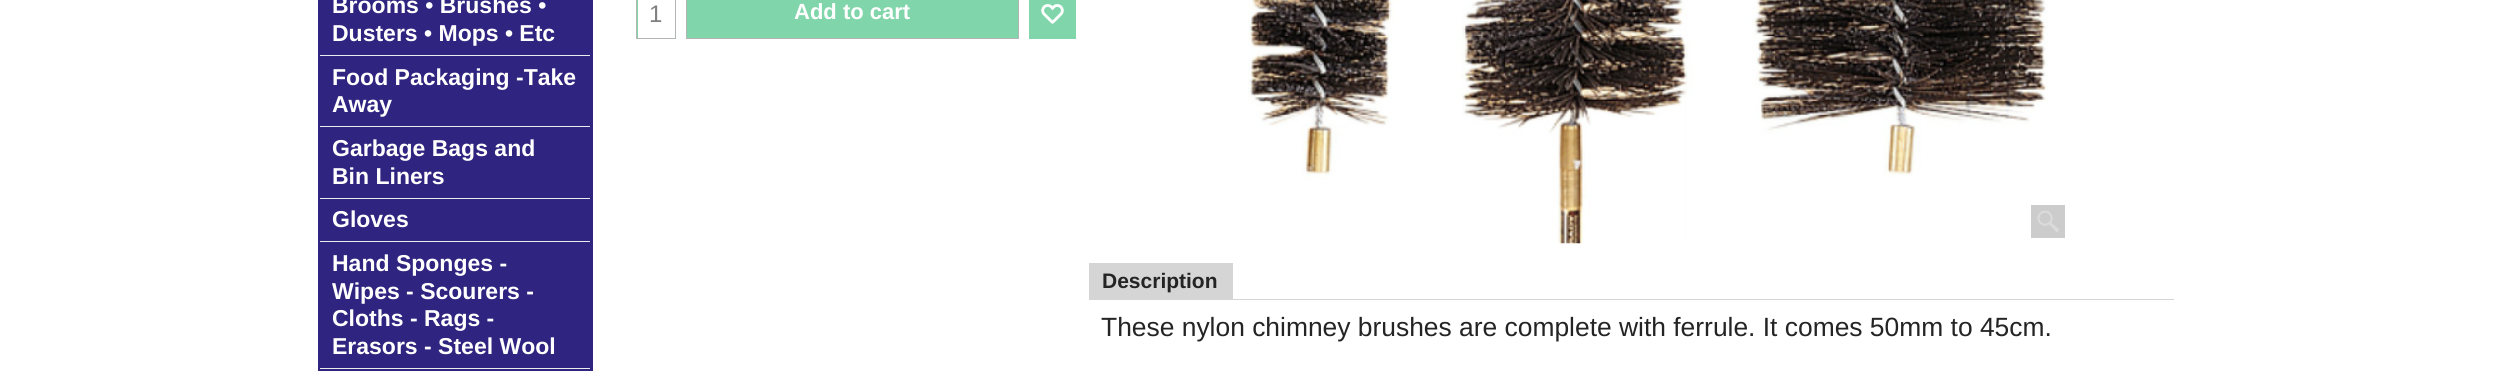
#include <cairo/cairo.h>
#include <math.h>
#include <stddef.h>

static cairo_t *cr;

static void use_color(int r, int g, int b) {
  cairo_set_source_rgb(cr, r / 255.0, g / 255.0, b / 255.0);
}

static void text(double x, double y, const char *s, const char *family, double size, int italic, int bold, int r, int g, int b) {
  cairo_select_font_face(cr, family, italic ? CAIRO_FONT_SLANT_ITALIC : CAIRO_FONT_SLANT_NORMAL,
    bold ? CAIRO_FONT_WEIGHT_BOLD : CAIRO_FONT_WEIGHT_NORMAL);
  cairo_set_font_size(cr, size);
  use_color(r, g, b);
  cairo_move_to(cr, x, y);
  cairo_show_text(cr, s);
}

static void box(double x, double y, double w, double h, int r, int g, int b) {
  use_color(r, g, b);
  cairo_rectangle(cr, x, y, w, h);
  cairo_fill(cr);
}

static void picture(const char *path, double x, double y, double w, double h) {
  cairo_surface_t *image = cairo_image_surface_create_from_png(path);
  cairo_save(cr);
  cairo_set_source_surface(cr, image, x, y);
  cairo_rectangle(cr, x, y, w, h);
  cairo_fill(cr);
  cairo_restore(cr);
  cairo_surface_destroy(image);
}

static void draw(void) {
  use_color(255, 255, 255);
  cairo_paint(cr);
  box(318, 0, 275, 371, 47, 36, 127);
  box(320, 55, 270, 1, 237, 237, 237);
  box(320, 126, 270, 1, 237, 237, 237);
  box(320, 198, 270, 1, 237, 237, 237);
  box(320, 241, 270, 1, 237, 237, 237);
  box(320, 368, 270, 1, 237, 237, 237);
  box(637, 0, 1, 38, 128, 213, 170);
  cairo_rectangle(cr, 636.5, -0.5, 39, 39);
  use_color(177, 182, 179);
  cairo_set_line_width(cr, 1);
  cairo_stroke(cr);
  use_color(128, 213, 170);
  cairo_rectangle(cr, 686.5, -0.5, 332, 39);
  cairo_fill_preserve(cr);
  use_color(177, 182, 179);
  cairo_stroke(cr);
  box(1029, 0, 47, 39, 128, 213, 170);
  picture("img_01.png", 1041, 4, 23, 20);
  picture("img_02.png", 1248, 0, 800, 244);
  box(2031, 205, 34, 33, 204, 204, 204);
  picture("img_03.png", 2037, 210, 22, 23);
  box(1089, 263, 144, 37, 213, 213, 213);
  box(1233, 299, 941, 1, 213, 213, 213);
  text(332, 13, "Brooms • Brushes •", "Liberation Sans", 23, 0, 1, 255, 255, 255);
  text(332, 41, "Dusters • Mops • Etc", "Liberation Sans", 23, 0, 1, 255, 255, 255);
  text(332, 85, "Food Packaging -Take", "Liberation Sans", 23, 0, 1, 255, 255, 255);
  text(332, 112, "Away", "Liberation Sans", 23, 0, 1, 255, 255, 255);
  text(332, 156, "Garbage Bags and", "Liberation Sans", 23, 0, 1, 255, 255, 255);
  text(332, 184, "Bin Liners", "Liberation Sans", 23, 0, 1, 255, 255, 255);
  text(332, 227, "Gloves", "Liberation Sans", 23, 0, 1, 255, 255, 255);
  text(332, 271, "Hand Sponges -", "Liberation Sans", 23, 0, 1, 255, 255, 255);
  text(332, 299, "Wipes - Scourers -", "Liberation Sans", 23, 0, 1, 255, 255, 255);
  text(332, 326, "Cloths - Rags -", "Liberation Sans", 23, 0, 1, 255, 255, 255);
  text(332, 354, "Erasors - Steel Wool", "Liberation Sans", 23, 0, 1, 255, 255, 255);
  text(649, 22, "1", "Liberation Sans", 24, 0, 0, 128, 128, 128);
  text(794, 19, "Add to cart", "Liberation Sans", 22, 0, 1, 255, 255, 255);
  text(1102, 288, "Description", "Liberation Sans", 21, 0, 1, 36, 36, 36);
  text(1101, 336, "These nylon chimney brushes are complete with ferrule. It comes 50mm to 45cm.", "Liberation Sans", 26.4, 0, 0, 36, 36, 36);
}

int main(void) {
  cairo_surface_t *surface = cairo_image_surface_create(CAIRO_FORMAT_RGB24, 2508, 371);
  cr = cairo_create(surface);
  cairo_font_options_t *options = cairo_font_options_create();
  cairo_font_options_set_hint_metrics(options, CAIRO_HINT_METRICS_OFF);
  cairo_font_options_set_hint_style(options, CAIRO_HINT_STYLE_NONE);
  cairo_set_font_options(cr, options);
  cairo_set_miter_limit(cr, 4);
  draw();
  cairo_surface_write_to_png(surface, "out.png");
  cairo_font_options_destroy(options);
  cairo_destroy(cr);
  cairo_surface_destroy(surface);
  return 0;
}
